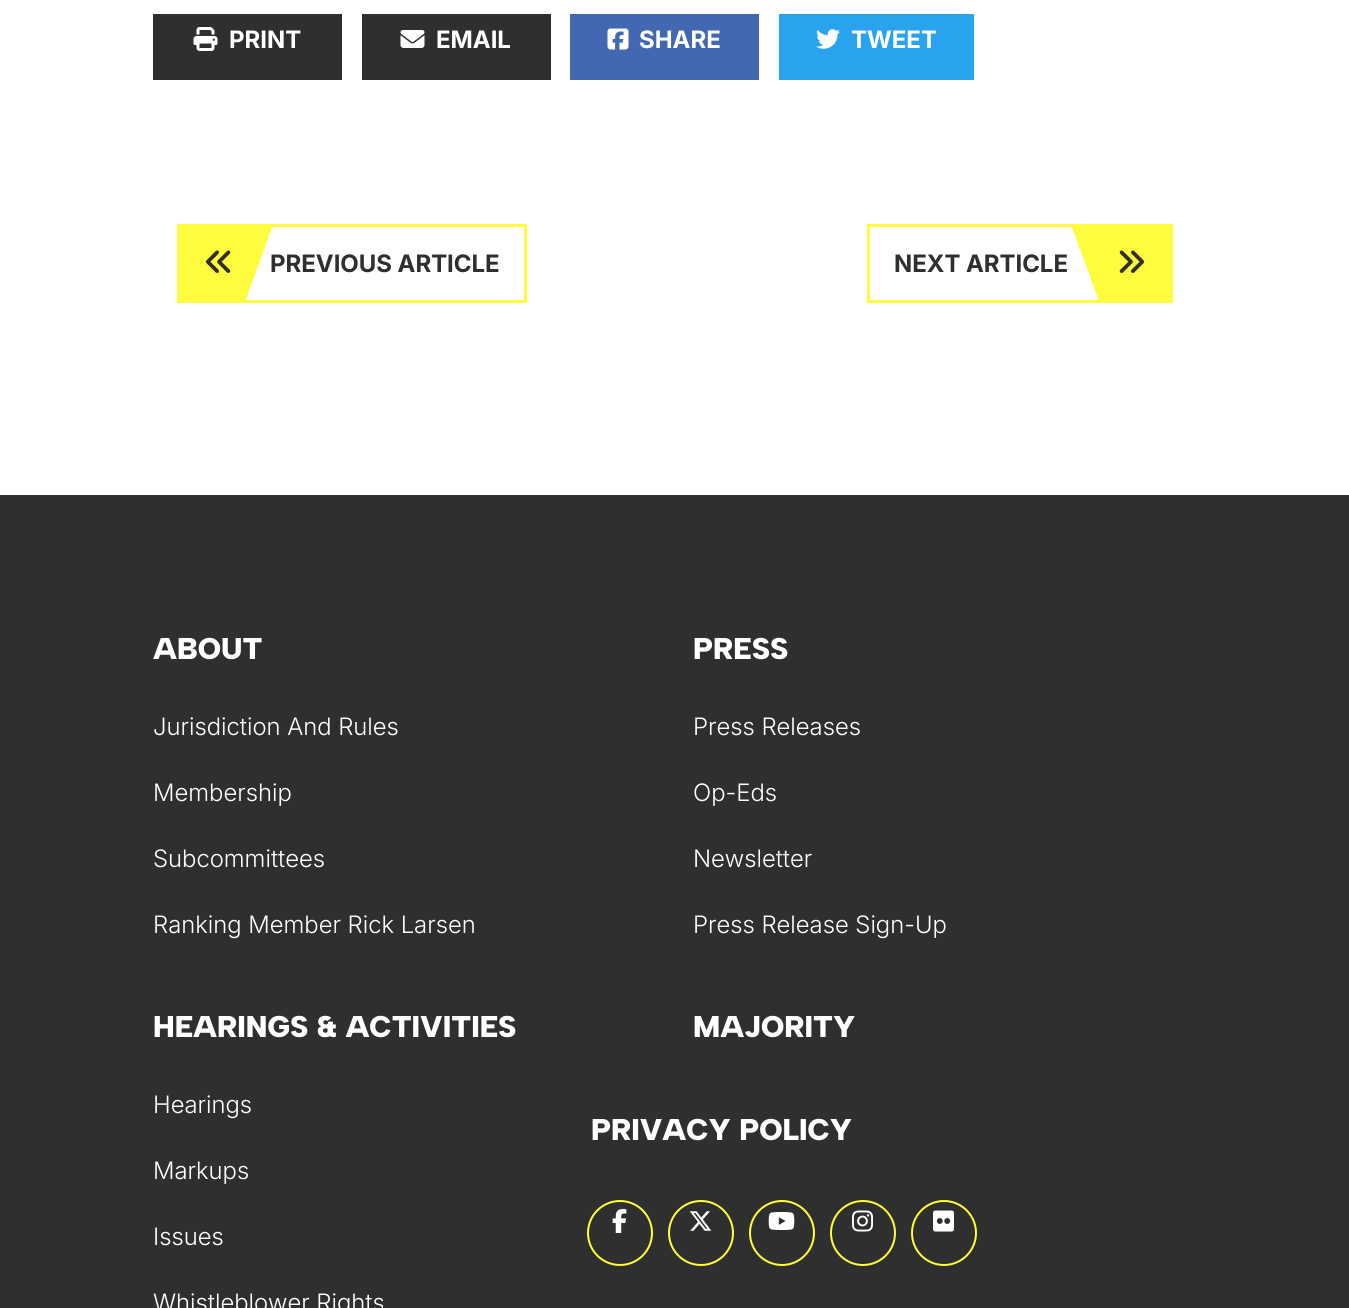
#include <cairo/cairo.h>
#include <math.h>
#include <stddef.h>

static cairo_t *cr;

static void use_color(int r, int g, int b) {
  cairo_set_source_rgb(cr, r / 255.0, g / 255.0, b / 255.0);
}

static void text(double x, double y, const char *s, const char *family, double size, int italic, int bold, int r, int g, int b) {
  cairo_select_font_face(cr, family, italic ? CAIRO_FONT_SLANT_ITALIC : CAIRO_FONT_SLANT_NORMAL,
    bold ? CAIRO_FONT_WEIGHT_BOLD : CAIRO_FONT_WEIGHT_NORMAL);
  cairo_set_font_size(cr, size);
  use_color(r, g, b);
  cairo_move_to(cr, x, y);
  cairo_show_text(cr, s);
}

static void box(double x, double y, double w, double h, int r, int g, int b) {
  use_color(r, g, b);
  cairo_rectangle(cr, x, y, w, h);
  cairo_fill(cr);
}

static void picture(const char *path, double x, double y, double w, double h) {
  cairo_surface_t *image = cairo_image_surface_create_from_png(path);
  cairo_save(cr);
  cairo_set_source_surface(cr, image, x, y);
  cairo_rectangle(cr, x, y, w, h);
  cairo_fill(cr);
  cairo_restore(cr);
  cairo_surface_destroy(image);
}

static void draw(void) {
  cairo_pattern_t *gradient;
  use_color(255, 255, 255);
  cairo_paint(cr);
  box(153, 14, 189, 66, 47, 47, 47);
  picture("img_01.png", 193, 27, 25, 24);
  box(362, 14, 189, 66, 47, 47, 47);
  picture("img_02.png", 400, 30, 25, 18);
  box(570, 14, 189, 66, 66, 104, 178);
  picture("img_03.png", 607, 28, 22, 22);
  box(779, 14, 195, 66, 42, 163, 239);
  picture("img_04.png", 816, 29, 24, 20);
  gradient = cairo_pattern_create_linear(188, 204, 515, 323);
  cairo_pattern_add_color_stop_rgba(gradient, 0.25, 1, 0.984, 0.239, 1);
  cairo_pattern_add_color_stop_rgba(gradient, 0.25, 1, 1, 1, 1);
  cairo_set_source(cr, gradient);
  cairo_pattern_destroy(gradient);
  cairo_rectangle(cr, 180, 227, 92, 73);
  cairo_fill(cr);
  cairo_rectangle(cr, 178.5, 225.5, 347, 76);
  use_color(255, 251, 61);
  cairo_set_line_width(cr, 3);
  cairo_stroke(cr);
  picture("img_05.png", 205, 250, 26, 23);
  gradient = cairo_pattern_create_linear(876, 316, 1164, 211);
  cairo_pattern_add_color_stop_rgba(gradient, 0.7, 1, 1, 1, 1);
  cairo_pattern_add_color_stop_rgba(gradient, 0.7, 1, 0.984, 0.239, 1);
  cairo_set_source(cr, gradient);
  cairo_pattern_destroy(gradient);
  cairo_rectangle(cr, 1072, 227, 98, 73);
  cairo_fill(cr);
  cairo_rectangle(cr, 868.5, 225.5, 303, 76);
  use_color(255, 251, 61);
  cairo_stroke(cr);
  picture("img_06.png", 1119, 250, 26, 23);
  box(0, 495, 1349, 813, 47, 47, 47);
  cairo_arc(cr, 620, 1233, 32, 0, 2 * M_PI);
  use_color(255, 251, 61);
  cairo_set_line_width(cr, 2);
  cairo_stroke(cr);
  picture("img_07.png", 612, 1209, 15, 24);
  cairo_arc(cr, 701, 1233, 32, 0, 2 * M_PI);
  cairo_stroke(cr);
  picture("img_08.png", 689, 1211, 23, 20);
  cairo_arc(cr, 782, 1233, 32, 0, 2 * M_PI);
  cairo_stroke(cr);
  picture("img_09.png", 768, 1212, 27, 18);
  cairo_arc(cr, 863, 1233, 32, 0, 2 * M_PI);
  cairo_stroke(cr);
  picture("img_10.png", 852, 1210, 21, 22);
  cairo_arc(cr, 944, 1233, 32, 0, 2 * M_PI);
  cairo_stroke(cr);
  picture("img_11.png", 933, 1210, 21, 22);
  text(229, 48, "PRINT", "Inter", 24, 0, 1, 255, 255, 255);
  text(436, 48, "EMAIL", "Inter", 24, 0, 1, 255, 255, 255);
  text(639, 48, "SHARE", "Inter", 24, 0, 1, 255, 255, 255);
  text(851, 48, "TWEET", "Inter", 24, 0, 1, 255, 255, 255);
  text(270, 272, "PREVIOUS ARTICLE", "Inter", 24, 0, 1, 47, 47, 47);
  text(894, 272, "NEXT ARTICLE", "Inter", 24, 0, 1, 47, 47, 47);
  text(153, 659, "ABOUT", "Albert Sans Black", 30, 0, 0, 255, 255, 255);
  text(153, 735, "Jurisdiction And Rules", "Inter Light", 24, 0, 0, 255, 255, 255);
  text(153, 801, "Membership", "Inter Light", 24, 0, 0, 255, 255, 255);
  text(153, 867, "Subcommittees", "Inter Light", 24, 0, 0, 255, 255, 255);
  text(153, 933, "Ranking Member Rick Larsen", "Inter Light", 24, 0, 0, 255, 255, 255);
  text(693, 659, "PRESS", "Albert Sans Black", 30, 0, 0, 255, 255, 255);
  text(693, 735, "Press Releases", "Inter Light", 24, 0, 0, 255, 255, 255);
  text(693, 801, "Op-Eds", "Inter Light", 24, 0, 0, 255, 255, 255);
  text(693, 867, "Newsletter", "Inter Light", 24, 0, 0, 255, 255, 255);
  text(693, 933, "Press Release Sign-Up", "Inter Light", 24, 0, 0, 255, 255, 255);
  text(153, 1037, "HEARINGS & ACTIVITIES", "Albert Sans Black", 30, 0, 0, 255, 255, 255);
  text(153, 1113, "Hearings", "Inter Light", 24, 0, 0, 255, 255, 255);
  text(153, 1179, "Markups", "Inter Light", 24, 0, 0, 255, 255, 255);
  text(153, 1245, "Issues", "Inter Light", 24, 0, 0, 255, 255, 255);
  text(153, 1311, "Whistleblower Rights", "Inter Light", 24, 0, 0, 255, 255, 255);
  text(693, 1037, "MAJORITY", "Albert Sans Black", 30, 0, 0, 255, 255, 255);
  text(591, 1140, "PRIVACY POLICY", "Albert Sans Black", 30, 0, 0, 255, 255, 255);
}

int main(void) {
  cairo_surface_t *surface = cairo_image_surface_create(CAIRO_FORMAT_RGB24, 1349, 1308);
  cr = cairo_create(surface);
  cairo_font_options_t *options = cairo_font_options_create();
  cairo_font_options_set_hint_metrics(options, CAIRO_HINT_METRICS_OFF);
  cairo_font_options_set_hint_style(options, CAIRO_HINT_STYLE_NONE);
  cairo_set_font_options(cr, options);
  cairo_set_miter_limit(cr, 4);
  draw();
  cairo_surface_write_to_png(surface, "out.png");
  cairo_font_options_destroy(options);
  cairo_destroy(cr);
  cairo_surface_destroy(surface);
  return 0;
}
